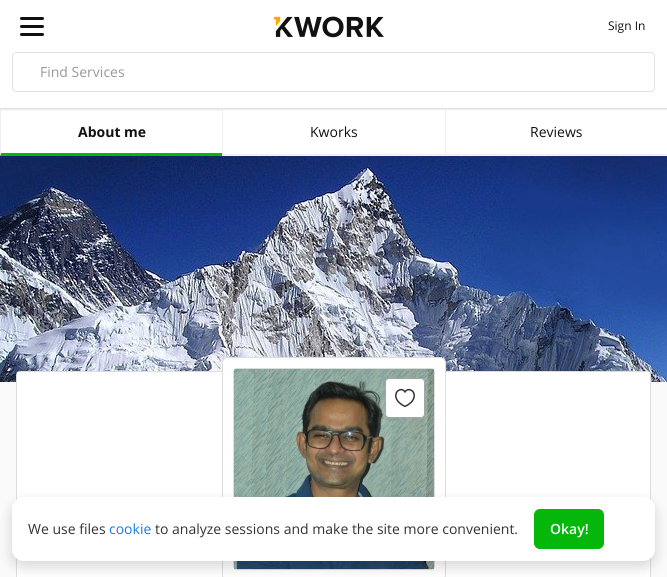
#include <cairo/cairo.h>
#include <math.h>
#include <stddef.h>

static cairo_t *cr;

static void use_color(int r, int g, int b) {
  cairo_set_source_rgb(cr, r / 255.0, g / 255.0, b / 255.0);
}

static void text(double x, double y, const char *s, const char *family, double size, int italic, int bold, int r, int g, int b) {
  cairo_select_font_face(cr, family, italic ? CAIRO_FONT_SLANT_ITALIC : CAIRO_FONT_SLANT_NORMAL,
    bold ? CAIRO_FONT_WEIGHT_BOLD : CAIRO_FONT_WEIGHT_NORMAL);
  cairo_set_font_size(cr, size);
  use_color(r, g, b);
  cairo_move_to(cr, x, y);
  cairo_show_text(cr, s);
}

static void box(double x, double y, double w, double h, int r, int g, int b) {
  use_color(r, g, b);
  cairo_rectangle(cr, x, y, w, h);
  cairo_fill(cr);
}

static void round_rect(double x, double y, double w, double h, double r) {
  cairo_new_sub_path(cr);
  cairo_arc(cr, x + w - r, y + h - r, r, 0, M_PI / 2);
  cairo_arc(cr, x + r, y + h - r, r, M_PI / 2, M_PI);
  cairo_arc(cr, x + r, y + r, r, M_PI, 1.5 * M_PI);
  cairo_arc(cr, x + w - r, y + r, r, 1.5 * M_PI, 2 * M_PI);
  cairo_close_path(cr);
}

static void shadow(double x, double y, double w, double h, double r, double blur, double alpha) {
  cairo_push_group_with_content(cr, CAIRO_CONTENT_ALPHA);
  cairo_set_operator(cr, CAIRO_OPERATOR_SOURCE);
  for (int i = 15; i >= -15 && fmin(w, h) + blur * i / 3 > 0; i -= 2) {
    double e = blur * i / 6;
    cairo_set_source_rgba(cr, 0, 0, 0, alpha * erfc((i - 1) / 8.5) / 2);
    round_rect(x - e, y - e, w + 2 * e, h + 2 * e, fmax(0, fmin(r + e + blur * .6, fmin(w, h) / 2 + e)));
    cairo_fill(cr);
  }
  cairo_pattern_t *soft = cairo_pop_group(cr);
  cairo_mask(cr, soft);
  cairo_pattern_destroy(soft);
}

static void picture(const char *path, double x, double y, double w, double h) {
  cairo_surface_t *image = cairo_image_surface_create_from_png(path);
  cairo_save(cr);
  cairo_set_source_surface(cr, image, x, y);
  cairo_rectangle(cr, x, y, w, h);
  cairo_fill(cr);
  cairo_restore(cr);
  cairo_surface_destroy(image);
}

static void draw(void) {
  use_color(246, 246, 246);
  cairo_paint(cr);
  box(0, 0, 667, 108, 255, 255, 255);
  box(0, 108, 667, 1, 226, 226, 226);
  use_color(17, 17, 17);
  round_rect(20, 17, 24, 3, 1.5);
  cairo_fill(cr);
  round_rect(20, 25, 24, 3, 1.5);
  cairo_fill(cr);
  round_rect(20, 33, 24, 3, 1.5);
  cairo_fill(cr);
  picture("img_01.png", 274, 16, 110, 22);
  round_rect(12.5, 52.5, 642, 39, 3.5);
  use_color(226, 226, 226);
  cairo_set_line_width(cr, 1);
  cairo_stroke(cr);
  box(0, 109, 667, 1, 238, 238, 238);
  box(0, 111, 222, 45, 255, 255, 255);
  use_color(4, 183, 10);
  cairo_new_path(cr);
  cairo_move_to(cr, 222, 156);
  cairo_line_to(cr, 0, 156);
  cairo_line_to(cr, 1, 153);
  cairo_line_to(cr, 222, 153);
  cairo_close_path(cr);
  cairo_fill(cr);
  use_color(238, 238, 238);
  cairo_new_path(cr);
  cairo_move_to(cr, 0, 156);
  cairo_line_to(cr, 0, 111);
  cairo_line_to(cr, 1, 111);
  cairo_line_to(cr, 1, 153);
  cairo_close_path(cr);
  cairo_fill(cr);
  box(223, 110, 222, 44, 255, 255, 255);
  box(222, 154, 445, 1, 238, 238, 238);
  box(222, 110, 1, 45, 238, 238, 238);
  box(446, 110, 221, 44, 255, 255, 255);
  box(445, 110, 1, 45, 238, 238, 238);
  picture("img_02.png", 0, 156, 667, 226);
  box(0, 382, 667, 195, 250, 250, 250);
  round_rect(16.5, 371.5, 634, 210, 3.5);
  use_color(221, 221, 221);
  cairo_stroke(cr);
  box(17, 372, 633, 205, 255, 255, 255);
  round_rect(222.5, 357.5, 223, 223, 5.5);
  cairo_fill_preserve(cr);
  use_color(221, 221, 221);
  cairo_stroke(cr);
  round_rect(233.5, 368.5, 201, 201, 3.5);
  cairo_stroke(cr);
  picture("img_03.png", 234, 369, 200, 200);
  use_color(255, 255, 255);
  round_rect(385.5, 378.5, 39, 39, 3.5);
  cairo_fill_preserve(cr);
  use_color(165, 165, 165);
  cairo_stroke(cr);
  picture("img_04.png", 395, 388, 20, 20);
  use_color(0, 0, 0);
  shadow(12, 503, 643, 64, 12, 7, 0.16);
  use_color(255, 255, 255);
  round_rect(12, 497, 643, 64, 12);
  cairo_fill(cr);
  use_color(4, 183, 10);
  round_rect(534.5, 509.5, 69, 39, 5.5);
  cairo_fill_preserve(cr);
  cairo_stroke(cr);
  text(608, 30, "Sign In", "Open Sans", 12, 0, 0, 17, 17, 17);
  text(40, 77, "Find Services", "Open Sans", 14, 0, 0, 153, 153, 153);
  text(78, 137, "About me", "Open Sans", 14, 0, 1, 17, 17, 17);
  text(310, 137, "Kworks", "Open Sans", 14, 0, 0, 17, 17, 17);
  text(530, 137, "Reviews", "Open Sans", 14, 0, 0, 17, 17, 17);
  text(28, 534, "We use files", "Open Sans", 14, 0, 0, 51, 51, 51);
  text(109, 534, "cookie", "Open Sans", 14, 0, 0, 23, 125, 229);
  text(155, 534, "to analyze sessions and make the site more convenient.", "Open Sans", 14, 0, 0, 51, 51, 51);
  text(550, 534, "Okay!", "Open Sans SemiBold", 14, 0, 0, 255, 255, 255);
}

int main(void) {
  cairo_surface_t *surface = cairo_image_surface_create(CAIRO_FORMAT_RGB24, 667, 577);
  cr = cairo_create(surface);
  cairo_font_options_t *options = cairo_font_options_create();
  cairo_font_options_set_hint_metrics(options, CAIRO_HINT_METRICS_OFF);
  cairo_font_options_set_hint_style(options, CAIRO_HINT_STYLE_NONE);
  cairo_set_font_options(cr, options);
  cairo_set_miter_limit(cr, 4);
  draw();
  cairo_surface_write_to_png(surface, "out.png");
  cairo_font_options_destroy(options);
  cairo_destroy(cr);
  cairo_surface_destroy(surface);
  return 0;
}
